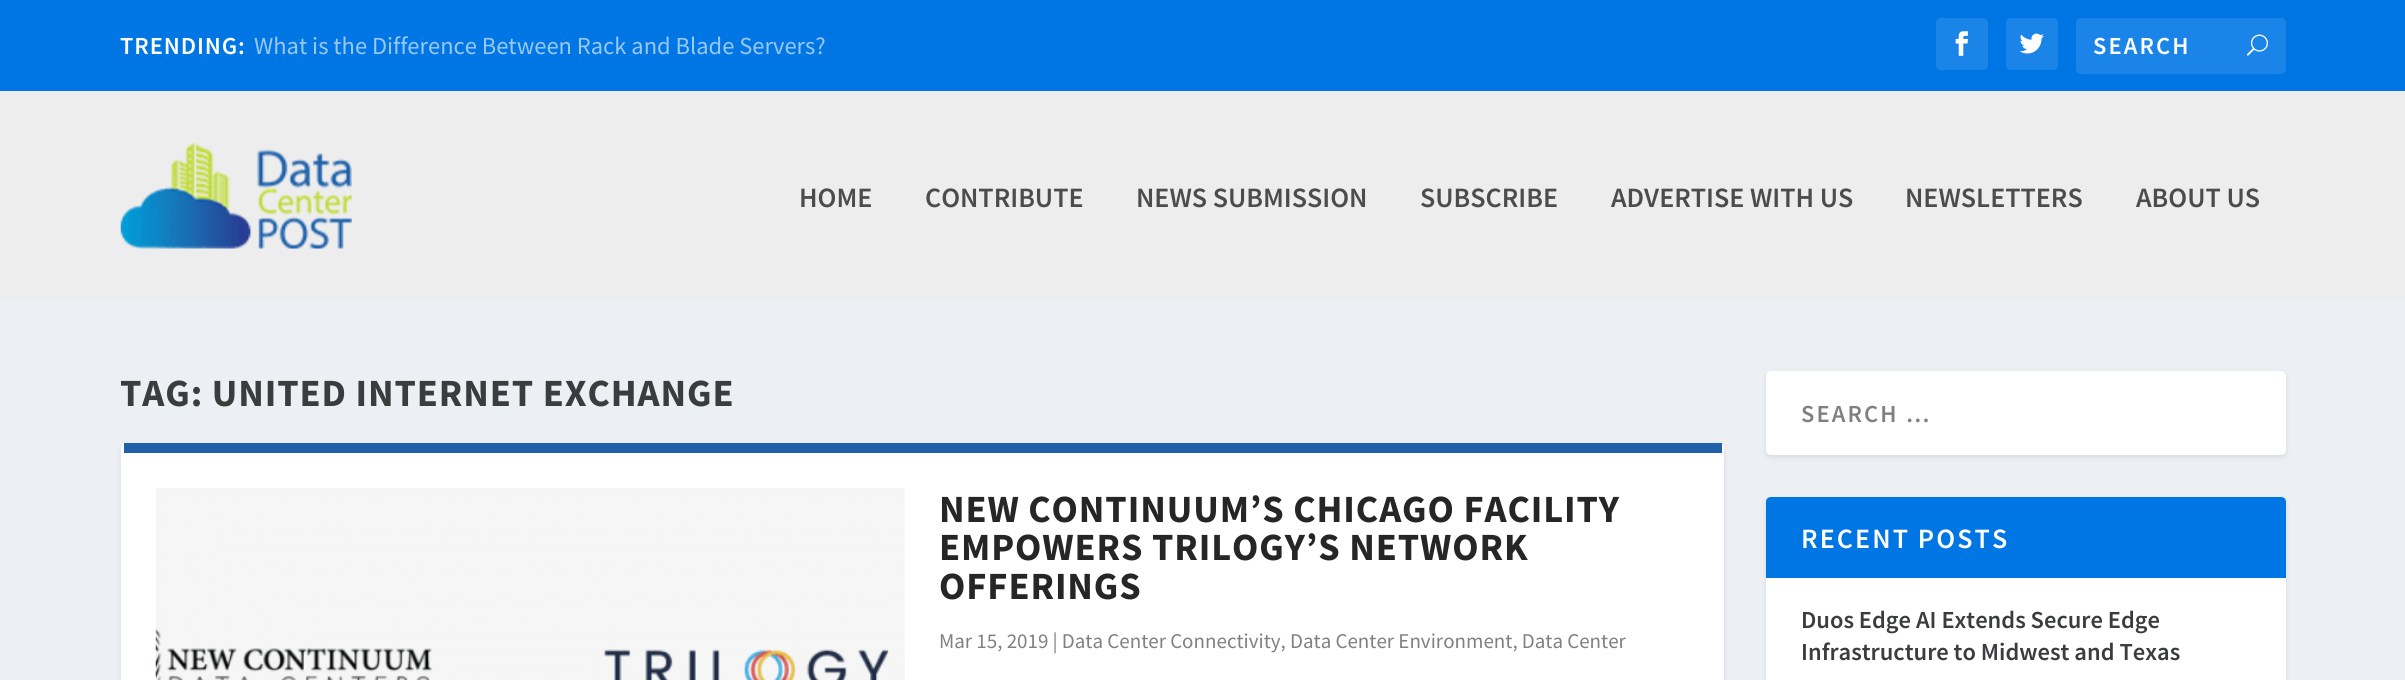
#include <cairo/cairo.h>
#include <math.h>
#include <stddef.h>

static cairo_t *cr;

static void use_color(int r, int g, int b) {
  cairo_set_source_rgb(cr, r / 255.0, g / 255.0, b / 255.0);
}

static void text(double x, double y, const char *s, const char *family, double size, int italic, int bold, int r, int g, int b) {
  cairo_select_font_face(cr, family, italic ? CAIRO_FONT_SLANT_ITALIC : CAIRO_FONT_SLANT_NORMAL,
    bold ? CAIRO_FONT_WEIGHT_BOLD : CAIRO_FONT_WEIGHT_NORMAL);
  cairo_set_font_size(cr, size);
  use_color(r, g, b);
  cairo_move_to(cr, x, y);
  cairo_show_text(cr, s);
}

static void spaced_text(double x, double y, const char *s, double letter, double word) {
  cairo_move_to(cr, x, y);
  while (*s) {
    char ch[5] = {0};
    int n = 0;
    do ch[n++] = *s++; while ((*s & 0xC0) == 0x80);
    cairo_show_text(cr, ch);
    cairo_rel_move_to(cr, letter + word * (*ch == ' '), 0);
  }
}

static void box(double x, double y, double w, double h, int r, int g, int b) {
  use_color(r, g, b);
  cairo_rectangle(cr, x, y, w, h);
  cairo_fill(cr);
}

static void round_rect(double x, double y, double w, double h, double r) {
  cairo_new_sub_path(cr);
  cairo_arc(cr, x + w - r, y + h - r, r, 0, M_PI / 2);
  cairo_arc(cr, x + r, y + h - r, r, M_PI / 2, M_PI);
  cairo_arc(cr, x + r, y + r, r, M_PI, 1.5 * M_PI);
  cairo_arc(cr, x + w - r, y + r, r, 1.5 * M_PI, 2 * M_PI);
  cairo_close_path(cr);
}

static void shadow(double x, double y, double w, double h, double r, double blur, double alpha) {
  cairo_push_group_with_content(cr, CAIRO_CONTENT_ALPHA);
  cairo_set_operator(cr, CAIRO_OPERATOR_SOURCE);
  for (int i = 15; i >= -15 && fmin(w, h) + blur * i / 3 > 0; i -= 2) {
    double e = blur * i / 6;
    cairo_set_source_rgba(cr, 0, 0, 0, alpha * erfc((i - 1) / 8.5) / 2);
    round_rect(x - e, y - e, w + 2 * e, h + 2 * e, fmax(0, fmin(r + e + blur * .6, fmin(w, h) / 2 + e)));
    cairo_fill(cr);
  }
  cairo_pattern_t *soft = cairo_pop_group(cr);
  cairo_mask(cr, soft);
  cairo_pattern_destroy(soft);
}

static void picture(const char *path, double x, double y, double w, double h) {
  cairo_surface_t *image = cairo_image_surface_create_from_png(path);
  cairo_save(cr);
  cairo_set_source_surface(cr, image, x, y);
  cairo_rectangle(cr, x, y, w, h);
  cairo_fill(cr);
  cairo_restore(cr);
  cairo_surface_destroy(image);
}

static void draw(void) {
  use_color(236, 240, 245);
  cairo_paint(cr);
  box(0, 0, 2405, 91, 0, 118, 229);
  use_color(26, 132, 232);
  round_rect(1936, 18, 52, 52, 5);
  cairo_fill(cr);
  picture("img_01.png", 1955, 31, 13, 25);
  round_rect(2006, 18, 52, 52, 5);
  cairo_fill(cr);
  picture("img_02.png", 2019, 33, 25, 21);
  round_rect(2076, 18, 210, 56, 5);
  cairo_fill(cr);
  picture("img_03.png", 2247, 34, 21, 22);
  box(0, 91, 2405, 210, 237, 237, 237);
  picture("img_04.png", 120, 143, 232, 106);
  use_color(0, 0, 0);
  shadow(121, 445, 1603, 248, 5, 2.5, 0.1);
  use_color(255, 255, 255);
  round_rect(121, 443, 1603, 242, 5);
  cairo_fill(cr);
  box(124, 443, 1598, 10, 30, 97, 170);
  picture("img_05.png", 155, 488, 750, 192);
  use_color(0, 0, 0);
  shadow(1766, 373, 520, 84, 5, 2.5, 0.1);
  use_color(255, 255, 255);
  round_rect(1766, 371, 520, 84, 5);
  cairo_fill(cr);
  use_color(0, 0, 0);
  shadow(1766, 499, 520, 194, 5, 2.5, 0.1);
  use_color(255, 255, 255);
  round_rect(1766, 497, 520, 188, 5);
  cairo_fill(cr);
  use_color(0, 118, 229);
  cairo_new_path(cr);
  cairo_move_to(cr, 1771, 497);
  cairo_line_to(cr, 2281, 497);
  cairo_curve_to(cr, 2284, 497, 2286, 499, 2286, 502);
  cairo_line_to(cr, 2286, 578);
  cairo_line_to(cr, 1766, 578);
  cairo_line_to(cr, 1766, 502);
  cairo_curve_to(cr, 1766, 499, 1768, 497, 1771, 497);
  cairo_close_path(cr);
  cairo_fill(cr);
  cairo_select_font_face(cr, "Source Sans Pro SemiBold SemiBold", CAIRO_FONT_SLANT_NORMAL, CAIRO_FONT_WEIGHT_NORMAL);
  cairo_set_font_size(cr, 24.5);
  use_color(255, 255, 255);
  spaced_text(120, 54, "TRENDING:", 0.9, 0);
  text(254, 54, "What is the Difference Between Rack and Blade Servers?", "Source Sans Pro", 24.5, 0, 0, 153, 200, 245);
  cairo_select_font_face(cr, "Source Sans Pro SemiBold SemiBold", CAIRO_FONT_SLANT_NORMAL, CAIRO_FONT_WEIGHT_NORMAL);
  use_color(255, 255, 255);
  spaced_text(2093, 54, "SEARCH", 2.1, 0);
  text(799, 207, "HOME", "Source Sans Pro SemiBold SemiBold", 28, 0, 0, 76, 76, 76);
  text(925, 207, "CONTRIBUTE", "Source Sans Pro SemiBold SemiBold", 28, 0, 0, 76, 76, 76);
  text(1136, 207, "NEWS SUBMISSION", "Source Sans Pro SemiBold SemiBold", 28, 0, 0, 76, 76, 76);
  text(1420, 207, "SUBSCRIBE", "Source Sans Pro SemiBold SemiBold", 28, 0, 0, 76, 76, 76);
  text(1611, 207, "ADVERTISE WITH US", "Source Sans Pro SemiBold SemiBold", 28, 0, 0, 76, 76, 76);
  text(1905, 207, "NEWSLETTERS", "Source Sans Pro SemiBold SemiBold", 28, 0, 0, 76, 76, 76);
  text(2136, 207, "ABOUT US", "Source Sans Pro SemiBold SemiBold", 28, 0, 0, 76, 76, 76);
  cairo_select_font_face(cr, "Source Sans Pro", CAIRO_FONT_SLANT_NORMAL, CAIRO_FONT_WEIGHT_BOLD);
  cairo_set_font_size(cr, 38.5);
  use_color(59, 60, 61);
  spaced_text(120, 406, "TAG: UNITED INTERNET EXCHANGE", 0.9, 0);
  use_color(38, 38, 38);
  spaced_text(939, 522, "NEW CONTINUUM’S CHICAGO FACILITY", 0.9, 0);
  spaced_text(939, 560, "EMPOWERS TRILOGY’S NETWORK", 0.9, 0);
  spaced_text(939, 599, "OFFERINGS", 0.9, 0);
  text(939, 648, "Mar 15, 2019 | Data Center Connectivity, Data Center Environment, Data Center", "Source Sans Pro", 21, 0, 0, 128, 128, 128);
  cairo_select_font_face(cr, "Source Sans Pro SemiBold SemiBold", CAIRO_FONT_SLANT_NORMAL, CAIRO_FONT_WEIGHT_NORMAL);
  cairo_set_font_size(cr, 24.5);
  spaced_text(1801, 422, "SEARCH …", 2.1, 0);
  cairo_set_font_size(cr, 28);
  use_color(255, 255, 255);
  spaced_text(1801, 548, "RECENT POSTS", 2.1, 0);
  text(1801, 628, "Duos Edge AI Extends Secure Edge", "Source Sans Pro SemiBold SemiBold", 24.5, 0, 0, 59, 60, 61);
  text(1801, 660, "Infrastructure to Midwest and Texas", "Source Sans Pro SemiBold SemiBold", 24.5, 0, 0, 59, 60, 61);
}

int main(void) {
  cairo_surface_t *surface = cairo_image_surface_create(CAIRO_FORMAT_RGB24, 2405, 680);
  cr = cairo_create(surface);
  cairo_font_options_t *options = cairo_font_options_create();
  cairo_font_options_set_hint_metrics(options, CAIRO_HINT_METRICS_OFF);
  cairo_font_options_set_hint_style(options, CAIRO_HINT_STYLE_NONE);
  cairo_set_font_options(cr, options);
  cairo_set_miter_limit(cr, 4);
  draw();
  cairo_surface_write_to_png(surface, "out.png");
  cairo_font_options_destroy(options);
  cairo_destroy(cr);
  cairo_surface_destroy(surface);
  return 0;
}
